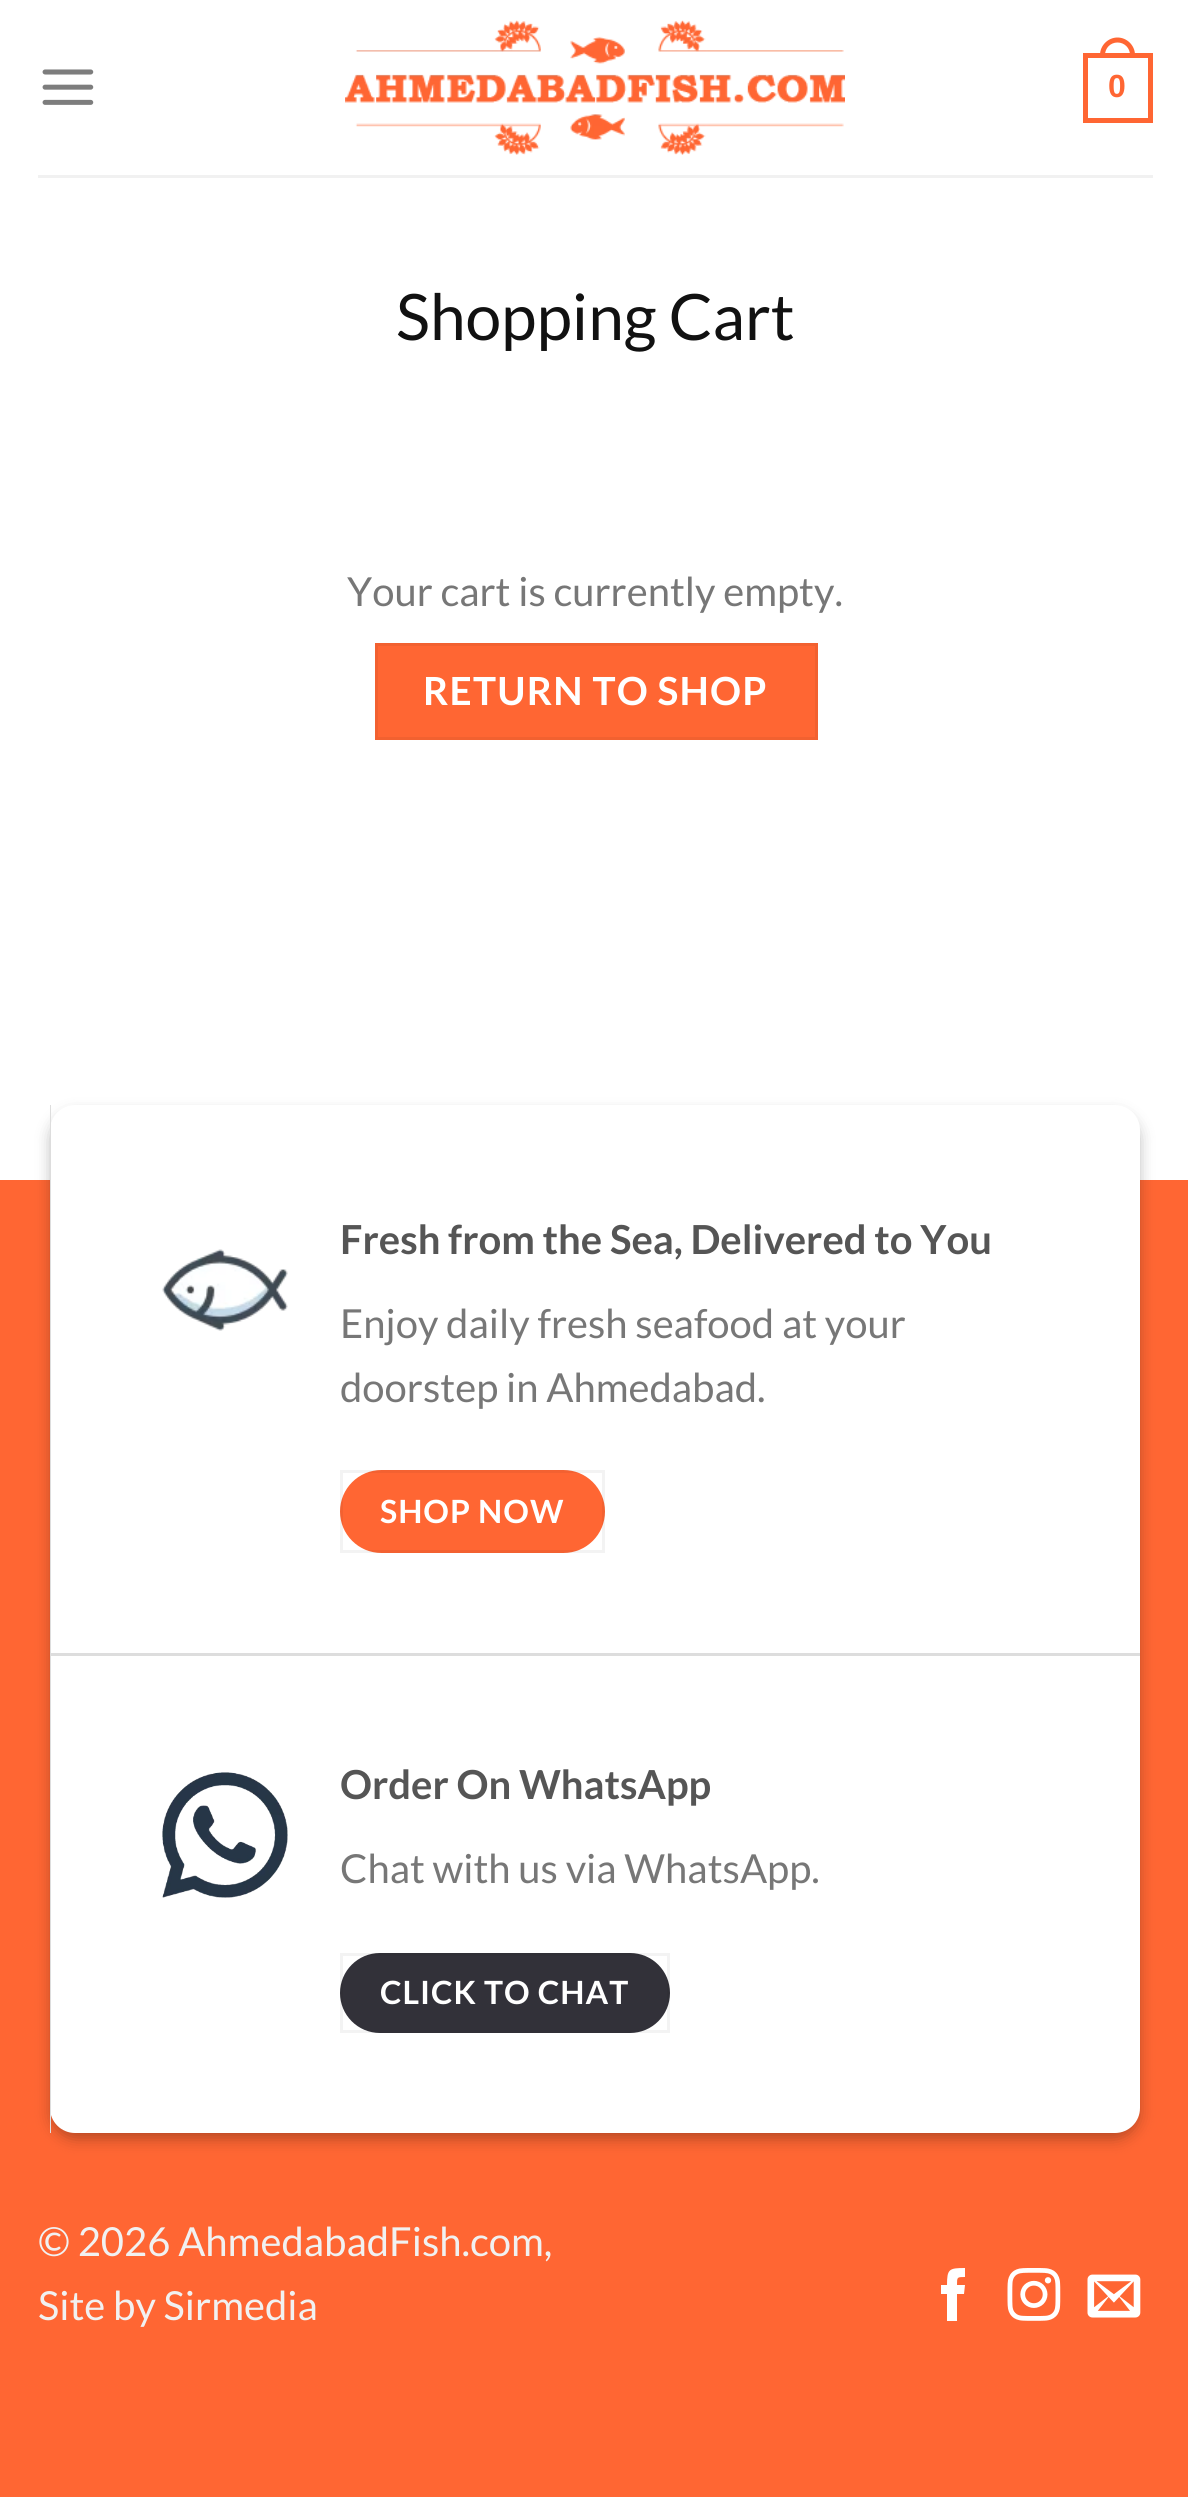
#include <cairo/cairo.h>
#include <math.h>
#include <stddef.h>

static cairo_t *cr;

static void use_color(int r, int g, int b) {
  cairo_set_source_rgb(cr, r / 255.0, g / 255.0, b / 255.0);
}

static void text(double x, double y, const char *s, const char *family, double size, int italic, int bold, int r, int g, int b) {
  cairo_select_font_face(cr, family, italic ? CAIRO_FONT_SLANT_ITALIC : CAIRO_FONT_SLANT_NORMAL,
    bold ? CAIRO_FONT_WEIGHT_BOLD : CAIRO_FONT_WEIGHT_NORMAL);
  cairo_set_font_size(cr, size);
  use_color(r, g, b);
  cairo_move_to(cr, x, y);
  cairo_show_text(cr, s);
}

static void spaced_text(double x, double y, const char *s, double letter, double word) {
  cairo_move_to(cr, x, y);
  while (*s) {
    char ch[5] = {0};
    int n = 0;
    do ch[n++] = *s++; while ((*s & 0xC0) == 0x80);
    cairo_show_text(cr, ch);
    cairo_rel_move_to(cr, letter + word * (*ch == ' '), 0);
  }
}

static void box(double x, double y, double w, double h, int r, int g, int b) {
  use_color(r, g, b);
  cairo_rectangle(cr, x, y, w, h);
  cairo_fill(cr);
}

static void round_rect(double x, double y, double w, double h, double r) {
  cairo_new_sub_path(cr);
  cairo_arc(cr, x + w - r, y + h - r, r, 0, M_PI / 2);
  cairo_arc(cr, x + r, y + h - r, r, M_PI / 2, M_PI);
  cairo_arc(cr, x + r, y + r, r, M_PI, 1.5 * M_PI);
  cairo_arc(cr, x + w - r, y + r, r, 1.5 * M_PI, 2 * M_PI);
  cairo_close_path(cr);
}

static void shadow(double x, double y, double w, double h, double r, double blur, double alpha) {
  cairo_push_group_with_content(cr, CAIRO_CONTENT_ALPHA);
  cairo_set_operator(cr, CAIRO_OPERATOR_SOURCE);
  for (int i = 15; i >= -15 && fmin(w, h) + blur * i / 3 > 0; i -= 2) {
    double e = blur * i / 6;
    cairo_set_source_rgba(cr, 0, 0, 0, alpha * erfc((i - 1) / 8.5) / 2);
    round_rect(x - e, y - e, w + 2 * e, h + 2 * e, fmax(0, fmin(r + e + blur * .6, fmin(w, h) / 2 + e)));
    cairo_fill(cr);
  }
  cairo_pattern_t *soft = cairo_pop_group(cr);
  cairo_mask(cr, soft);
  cairo_pattern_destroy(soft);
}

static void picture(const char *path, double x, double y, double w, double h) {
  cairo_surface_t *image = cairo_image_surface_create_from_png(path);
  cairo_save(cr);
  cairo_set_source_surface(cr, image, x, y);
  cairo_rectangle(cr, x, y, w, h);
  cairo_fill(cr);
  cairo_restore(cr);
  cairo_surface_destroy(image);
}

static void draw(void) {
  use_color(255, 255, 255);
  cairo_paint(cr);
  picture("img_01.png", 42, 69, 52, 36);
  picture("img_02.png", 345, 20, 500, 135);
  cairo_rectangle(cr, 1085.5, 55.5, 65, 65);
  use_color(255, 102, 51);
  cairo_set_line_width(cr, 5);
  cairo_stroke(cr);
  cairo_set_fill_rule(cr, CAIRO_FILL_RULE_EVEN_ODD);
  cairo_new_path(cr);
  cairo_move_to(cr, 1117.5, 37.5);
  cairo_curve_to(cr, 1127, 37.5, 1135, 45.5, 1135, 55);
  cairo_line_to(cr, 1135, 57.5);
  cairo_line_to(cr, 1100, 57.5);
  cairo_line_to(cr, 1100, 55);
  cairo_curve_to(cr, 1100, 45.5, 1108, 37.5, 1117.5, 37.5);
  cairo_close_path(cr);
  cairo_move_to(cr, 1117.5, 42.5);
  cairo_curve_to(cr, 1124.5, 42.5, 1130, 48, 1130, 55);
  cairo_line_to(cr, 1130, 57.5);
  cairo_line_to(cr, 1105, 57.5);
  cairo_line_to(cr, 1105, 55);
  cairo_curve_to(cr, 1105, 48, 1110.5, 42.5, 1117.5, 42.5);
  cairo_close_path(cr);
  cairo_fill(cr);
  box(38, 175, 1115, 3, 241, 241, 241);
  use_color(255, 102, 51);
  cairo_rectangle(cr, 376.5, 644.5, 440, 94);
  cairo_fill_preserve(cr);
  use_color(242, 97, 48);
  cairo_set_line_width(cr, 3);
  cairo_stroke(cr);
  box(0, 1180, 1188, 1317, 255, 102, 51);
  use_color(0, 0, 0);
  shadow(50, 1113, 1090, 1027, 25, 7.5, 0.23);
  shadow(60, 1123, 1070, 1007, 15, 7.5, 0.16);
  use_color(255, 255, 255);
  round_rect(50, 1105, 1090, 1028, 25);
  cairo_fill(cr);
  box(50, 1105, 1, 548, 221, 221, 221);
  picture("img_03.png", 162, 1249, 126, 82);
  use_color(255, 102, 51);
  round_rect(340, 1470, 265, 83, 41.5);
  cairo_fill(cr);
  cairo_rectangle(cr, 341.5, 1471.5, 262, 80);
  cairo_set_source_rgba(cr, 0, 0, 0, 0.05);
  cairo_stroke(cr);
  box(50, 1653, 1090, 3, 221, 221, 221);
  box(50, 1653, 1, 480, 221, 221, 221);
  picture("img_04.png", 162, 1772, 126, 126);
  use_color(50, 49, 57);
  round_rect(340, 1953, 330, 80, 40);
  cairo_fill(cr);
  cairo_rectangle(cr, 341.5, 1954.5, 327, 77);
  cairo_set_source_rgba(cr, 0, 0, 0, 0.05);
  cairo_stroke(cr);
  use_color(255, 255, 255);
  cairo_set_fill_rule(cr, CAIRO_FILL_RULE_WINDING);
  cairo_new_path(cr);
  cairo_move_to(cr, 957, 2321);
  cairo_line_to(cr, 947, 2321);
  cairo_line_to(cr, 947, 2294);
  cairo_line_to(cr, 941, 2294);
  cairo_line_to(cr, 941, 2285);
  cairo_line_to(cr, 947, 2285);
  cairo_curve_to(cr, 947, 2269, 949, 2268, 965, 2268);
  cairo_line_to(cr, 965, 2277);
  cairo_curve_to(cr, 957, 2277, 957, 2277, 957, 2285);
  cairo_line_to(cr, 965, 2285);
  cairo_line_to(cr, 964, 2294);
  cairo_line_to(cr, 957, 2294);
  cairo_close_path(cr);
  cairo_fill(cr);
  picture("img_05.png", 1007, 2268, 54, 53);
  picture("img_06.png", 1087, 2274, 54, 44);
  text(1108, 97, "0", "Liberation Sans", 32, 0, 1, 255, 102, 51);
  text(396, 340, "Shopping Cart", "Lato", 64, 0, 0, 17, 17, 17);
  text(347, 606, "Your cart is currently empty.", "Lato", 40, 0, 0, 119, 119, 119);
  cairo_select_font_face(cr, "Lato", CAIRO_FONT_SLANT_NORMAL, CAIRO_FONT_WEIGHT_BOLD);
  cairo_set_font_size(cr, 38.75);
  use_color(255, 255, 255);
  spaced_text(423, 705, "RETURN TO SHOP", 1.2, 0);
  text(340, 1254, "Fresh from the Sea, Delivered to You", "Lato", 40, 0, 1, 85, 85, 85);
  text(340, 1338, "Enjoy daily fresh seafood at your", "Lato", 40, 0, 0, 119, 119, 119);
  text(340, 1402, "doorstep in Ahmedabad.", "Lato", 40, 0, 0, 119, 119, 119);
  cairo_select_font_face(cr, "Lato", CAIRO_FONT_SLANT_NORMAL, CAIRO_FONT_WEIGHT_BOLD);
  cairo_set_font_size(cr, 32);
  use_color(255, 255, 255);
  spaced_text(380, 1523, "SHOP NOW", 1, 0);
  text(340, 1799, "Order On WhatsApp", "Lato", 40, 0, 1, 85, 85, 85);
  text(340, 1883, "Chat with us via WhatsApp.", "Lato", 40, 0, 0, 119, 119, 119);
  cairo_select_font_face(cr, "Lato", CAIRO_FONT_SLANT_NORMAL, CAIRO_FONT_WEIGHT_BOLD);
  cairo_set_font_size(cr, 32);
  use_color(255, 255, 255);
  spaced_text(380, 2004, "CLICK TO CHAT", 1, 0);
  text(38, 2256, "© 2026 AhmedabadFish.com,", "Lato", 40, 0, 0, 241, 241, 241);
  text(38, 2320, "Site by Sirmedia", "Lato", 40, 0, 0, 241, 241, 241);
}

int main(void) {
  cairo_surface_t *surface = cairo_image_surface_create(CAIRO_FORMAT_RGB24, 1188, 2497);
  cr = cairo_create(surface);
  cairo_font_options_t *options = cairo_font_options_create();
  cairo_font_options_set_hint_metrics(options, CAIRO_HINT_METRICS_OFF);
  cairo_font_options_set_hint_style(options, CAIRO_HINT_STYLE_NONE);
  cairo_set_font_options(cr, options);
  cairo_set_miter_limit(cr, 4);
  draw();
  cairo_surface_write_to_png(surface, "out.png");
  cairo_font_options_destroy(options);
  cairo_destroy(cr);
  cairo_surface_destroy(surface);
  return 0;
}
